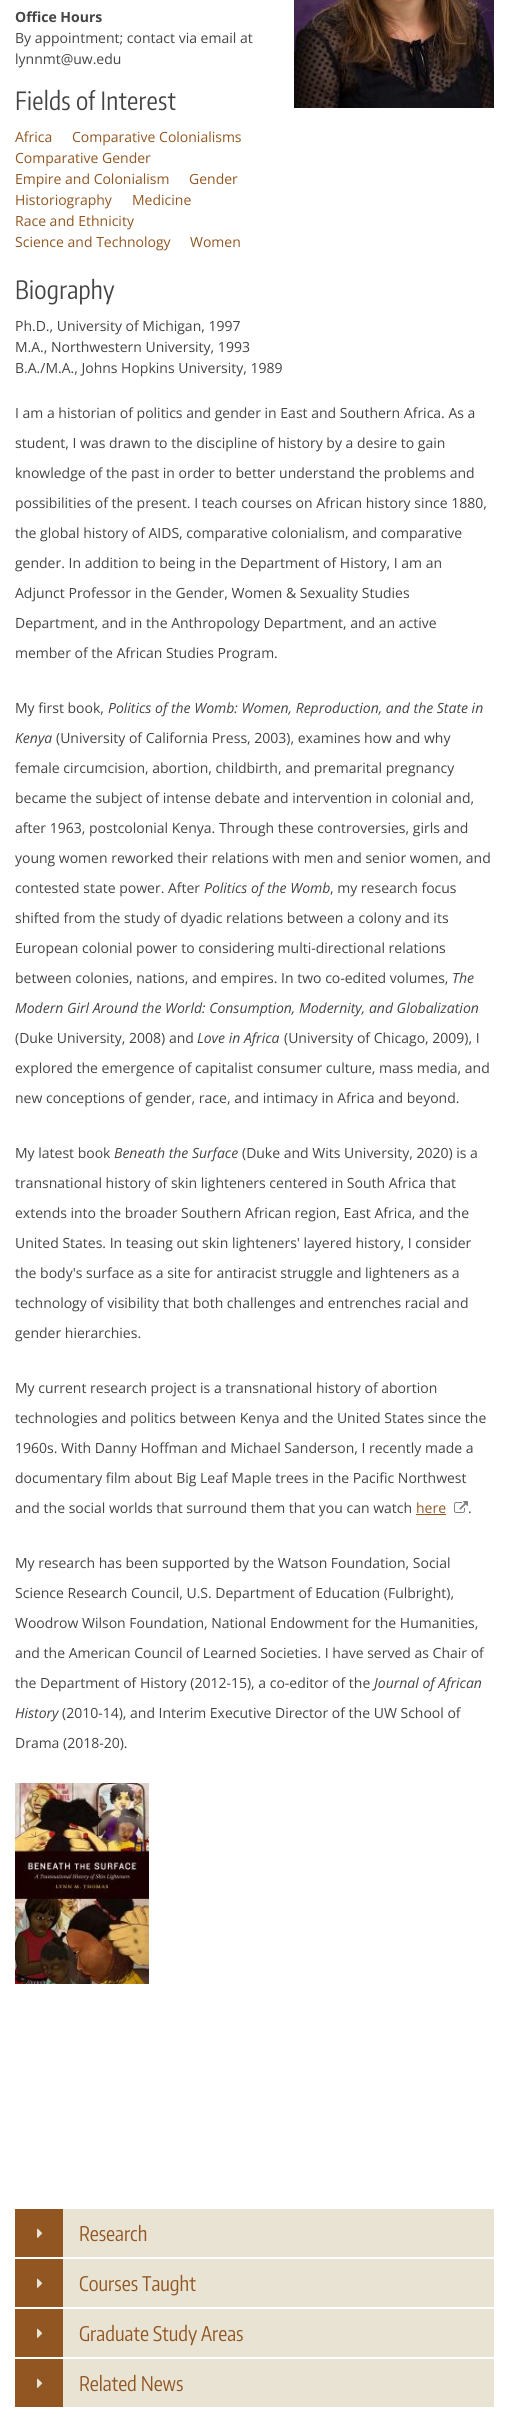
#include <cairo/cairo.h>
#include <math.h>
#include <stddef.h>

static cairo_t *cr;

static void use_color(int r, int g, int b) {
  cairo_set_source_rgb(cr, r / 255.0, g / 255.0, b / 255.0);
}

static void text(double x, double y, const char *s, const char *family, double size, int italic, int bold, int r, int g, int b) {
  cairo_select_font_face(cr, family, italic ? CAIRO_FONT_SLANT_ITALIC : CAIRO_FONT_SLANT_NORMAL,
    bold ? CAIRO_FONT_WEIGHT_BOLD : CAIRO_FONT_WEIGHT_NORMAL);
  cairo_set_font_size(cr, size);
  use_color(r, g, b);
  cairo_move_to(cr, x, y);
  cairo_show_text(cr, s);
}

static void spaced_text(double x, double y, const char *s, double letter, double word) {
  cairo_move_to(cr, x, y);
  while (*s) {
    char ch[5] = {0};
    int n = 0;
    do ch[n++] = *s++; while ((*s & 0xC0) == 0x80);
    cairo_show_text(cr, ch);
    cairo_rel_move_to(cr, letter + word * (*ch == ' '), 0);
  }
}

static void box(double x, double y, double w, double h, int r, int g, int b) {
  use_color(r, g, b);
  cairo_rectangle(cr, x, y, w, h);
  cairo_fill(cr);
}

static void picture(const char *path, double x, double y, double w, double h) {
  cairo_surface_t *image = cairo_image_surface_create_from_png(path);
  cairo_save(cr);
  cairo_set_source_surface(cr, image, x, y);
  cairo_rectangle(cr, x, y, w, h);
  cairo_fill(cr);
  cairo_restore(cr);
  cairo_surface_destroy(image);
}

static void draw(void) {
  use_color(255, 255, 255);
  cairo_paint(cr);
  picture("img_01.png", 294, 0, 200, 108);
  box(416, 1514, 30, 1, 145, 86, 34);
  picture("img_02.png", 454, 1501, 14, 12);
  picture("img_03.png", 15, 1783, 134, 201);
  box(63, 2209, 431, 48, 232, 227, 211);
  box(15, 2209, 48, 48, 145, 86, 34);
  picture("img_04.png", 37, 2228, 6, 10);
  box(63, 2259, 431, 48, 232, 227, 211);
  box(15, 2259, 48, 48, 145, 86, 34);
  picture("img_04.png", 37, 2278, 6, 10);
  box(63, 2309, 431, 48, 232, 227, 211);
  box(15, 2309, 48, 48, 145, 86, 34);
  picture("img_04.png", 37, 2328, 6, 10);
  box(63, 2359, 431, 48, 232, 227, 211);
  box(15, 2359, 48, 48, 145, 86, 34);
  picture("img_04.png", 37, 2378, 6, 10);
  text(15, 22, "Office Hours", "Open Sans", 14, 0, 1, 68, 68, 68);
  text(15, 43, "By appointment; contact via email at", "Open Sans", 14, 0, 0, 68, 68, 68);
  text(15, 64, "lynnmt@uw.edu", "Open Sans", 14, 0, 0, 68, 68, 68);
  cairo_select_font_face(cr, "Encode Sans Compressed", CAIRO_FONT_SLANT_NORMAL, CAIRO_FONT_WEIGHT_NORMAL);
  cairo_set_font_size(cr, 25);
  spaced_text(15, 110, "Fields of Interest", 0.25, 0);
  text(15, 142, "Africa", "Open Sans", 14, 0, 0, 145, 86, 34);
  text(72, 142, "Comparative Colonialisms", "Open Sans", 14, 0, 0, 145, 86, 34);
  text(15, 163, "Comparative Gender", "Open Sans", 14, 0, 0, 145, 86, 34);
  text(15, 184, "Empire and Colonialism", "Open Sans", 14, 0, 0, 145, 86, 34);
  text(189, 184, "Gender", "Open Sans", 14, 0, 0, 145, 86, 34);
  text(15, 205, "Historiography", "Open Sans", 14, 0, 0, 145, 86, 34);
  text(132, 205, "Medicine", "Open Sans", 14, 0, 0, 145, 86, 34);
  text(15, 226, "Race and Ethnicity", "Open Sans", 14, 0, 0, 145, 86, 34);
  text(15, 247, "Science and Technology", "Open Sans", 14, 0, 0, 145, 86, 34);
  text(190, 247, "Women", "Open Sans", 14, 0, 0, 145, 86, 34);
  cairo_select_font_face(cr, "Encode Sans Compressed", CAIRO_FONT_SLANT_NORMAL, CAIRO_FONT_WEIGHT_NORMAL);
  cairo_set_font_size(cr, 25);
  use_color(68, 68, 68);
  spaced_text(15, 299, "Biography", 0.25, 0);
  text(15, 331, "Ph.D., University of Michigan, 1997", "Open Sans", 14, 0, 0, 68, 68, 68);
  text(15, 352, "M.A., Northwestern University, 1993", "Open Sans", 14, 0, 0, 68, 68, 68);
  text(15, 373, "B.A./M.A., Johns Hopkins University, 1989", "Open Sans", 14, 0, 0, 68, 68, 68);
  text(15, 418, "I am a historian of politics and gender in East and Southern Africa. As a", "Open Sans", 14, 0, 0, 68, 68, 68);
  text(15, 448, "student, I was drawn to the discipline of history by a desire to gain", "Open Sans", 14, 0, 0, 68, 68, 68);
  text(15, 478, "knowledge of the past in order to better understand the problems and", "Open Sans", 14, 0, 0, 68, 68, 68);
  text(15, 508, "possibilities of the present. I teach courses on African history since 1880,", "Open Sans", 14, 0, 0, 68, 68, 68);
  text(15, 538, "the global history of AIDS, comparative colonialism, and comparative", "Open Sans", 14, 0, 0, 68, 68, 68);
  text(15, 568, "gender. In addition to being in the Department of History, I am an", "Open Sans", 14, 0, 0, 68, 68, 68);
  text(15, 598, "Adjunct Professor in the Gender, Women & Sexuality Studies", "Open Sans", 14, 0, 0, 68, 68, 68);
  text(15, 628, "Department, and in the Anthropology Department, and an active", "Open Sans", 14, 0, 0, 68, 68, 68);
  text(15, 658, "member of the African Studies Program.", "Open Sans", 14, 0, 0, 68, 68, 68);
  text(15, 713, "My first book,", "Open Sans", 14, 0, 0, 68, 68, 68);
  text(108, 713, "Politics of the Womb: Women, Reproduction, and the State in", "Open Sans", 14, 1, 0, 68, 68, 68);
  text(15, 743, "Kenya", "Open Sans", 14, 1, 0, 68, 68, 68);
  text(56, 743, "(University of California Press, 2003), examines how and why", "Open Sans", 14, 0, 0, 68, 68, 68);
  text(15, 773, "female circumcision, abortion, childbirth, and premarital pregnancy", "Open Sans", 14, 0, 0, 68, 68, 68);
  text(15, 803, "became the subject of intense debate and intervention in colonial and,", "Open Sans", 14, 0, 0, 68, 68, 68);
  text(15, 833, "after 1963, postcolonial Kenya. Through these controversies, girls and", "Open Sans", 14, 0, 0, 68, 68, 68);
  text(15, 863, "young women reworked their relations with men and senior women, and", "Open Sans", 14, 0, 0, 68, 68, 68);
  text(15, 893, "contested state power. After", "Open Sans", 14, 0, 0, 68, 68, 68);
  text(204, 893, "Politics of the Womb", "Open Sans", 14, 1, 0, 68, 68, 68);
  text(330, 893, ", my research focus", "Open Sans", 14, 0, 0, 68, 68, 68);
  text(15, 923, "shifted from the study of dyadic relations between a colony and its", "Open Sans", 14, 0, 0, 68, 68, 68);
  text(15, 953, "European colonial power to considering multi-directional relations", "Open Sans", 14, 0, 0, 68, 68, 68);
  text(15, 983, "between colonies, nations, and empires. In two co-edited volumes,", "Open Sans", 14, 0, 0, 68, 68, 68);
  text(452, 983, "The", "Open Sans", 14, 1, 0, 68, 68, 68);
  text(15, 1013, "Modern Girl Around the World: Consumption, Modernity, and Globalization", "Open Sans", 14, 1, 0, 68, 68, 68);
  text(15, 1043, "(Duke University, 2008) and", "Open Sans", 14, 0, 0, 68, 68, 68);
  text(197, 1043, "Love in Africa", "Open Sans", 14, 1, 0, 68, 68, 68);
  text(284, 1043, "(University of Chicago, 2009), I", "Open Sans", 14, 0, 0, 68, 68, 68);
  text(15, 1073, "explored the emergence of capitalist consumer culture, mass media, and", "Open Sans", 14, 0, 0, 68, 68, 68);
  text(15, 1103, "new conceptions of gender, race, and intimacy in Africa and beyond.", "Open Sans", 14, 0, 0, 68, 68, 68);
  text(15, 1158, "My latest book", "Open Sans", 14, 0, 0, 68, 68, 68);
  text(114, 1158, "Beneath the Surface", "Open Sans", 14, 1, 0, 68, 68, 68);
  text(242, 1158, "(Duke and Wits University, 2020) is a", "Open Sans", 14, 0, 0, 68, 68, 68);
  text(15, 1188, "transnational history of skin lighteners centered in South Africa that", "Open Sans", 14, 0, 0, 68, 68, 68);
  text(15, 1218, "extends into the broader Southern African region, East Africa, and the", "Open Sans", 14, 0, 0, 68, 68, 68);
  text(15, 1248, "United States. In teasing out skin lighteners' layered history, I consider", "Open Sans", 14, 0, 0, 68, 68, 68);
  text(15, 1278, "the body's surface as a site for antiracist struggle and lighteners as a", "Open Sans", 14, 0, 0, 68, 68, 68);
  text(15, 1308, "technology of visibility that both challenges and entrenches racial and", "Open Sans", 14, 0, 0, 68, 68, 68);
  text(15, 1338, "gender hierarchies.", "Open Sans", 14, 0, 0, 68, 68, 68);
  text(15, 1393, "My current research project is a transnational history of abortion", "Open Sans", 14, 0, 0, 68, 68, 68);
  text(15, 1423, "technologies and politics between Kenya and the United States since the", "Open Sans", 14, 0, 0, 68, 68, 68);
  text(15, 1453, "1960s. With Danny Hoffman and Michael Sanderson, I recently made a", "Open Sans", 14, 0, 0, 68, 68, 68);
  text(15, 1483, "documentary film about Big Leaf Maple trees in the Pacific Northwest", "Open Sans", 14, 0, 0, 68, 68, 68);
  text(15, 1513, "and the social worlds that surround them that you can watch", "Open Sans", 14, 0, 0, 68, 68, 68);
  text(416, 1513, "here", "Open Sans", 14, 0, 0, 145, 86, 34);
  text(468, 1513, ".", "Open Sans", 14, 0, 0, 68, 68, 68);
  text(15, 1568, "My research has been supported by the Watson Foundation, Social", "Open Sans", 14, 0, 0, 68, 68, 68);
  text(15, 1598, "Science Research Council, U.S. Department of Education (Fulbright),", "Open Sans", 14, 0, 0, 68, 68, 68);
  text(15, 1628, "Woodrow Wilson Foundation, National Endowment for the Humanities,", "Open Sans", 14, 0, 0, 68, 68, 68);
  text(15, 1658, "and the American Council of Learned Societies. I have served as Chair of", "Open Sans", 14, 0, 0, 68, 68, 68);
  text(15, 1688, "the Department of History (2012-15), a co-editor of the", "Open Sans", 14, 0, 0, 68, 68, 68);
  text(374, 1688, "Journal of African", "Open Sans", 14, 1, 0, 68, 68, 68);
  text(15, 1718, "History", "Open Sans", 14, 1, 0, 68, 68, 68);
  text(62, 1718, "(2010-14), and Interim Executive Director of the UW School of", "Open Sans", 14, 0, 0, 68, 68, 68);
  text(15, 1748, "Drama (2018-20).", "Open Sans", 14, 0, 0, 68, 68, 68);
  text(79, 2241, "Research", "Encode Sans Compressed", 20, 0, 0, 145, 86, 34);
  text(79, 2291, "Courses Taught", "Encode Sans Compressed", 20, 0, 0, 145, 86, 34);
  text(79, 2341, "Graduate Study Areas", "Encode Sans Compressed", 20, 0, 0, 145, 86, 34);
  text(79, 2391, "Related News", "Encode Sans Compressed", 20, 0, 0, 145, 86, 34);
}

int main(void) {
  cairo_surface_t *surface = cairo_image_surface_create(CAIRO_FORMAT_RGB24, 509, 2414);
  cr = cairo_create(surface);
  cairo_font_options_t *options = cairo_font_options_create();
  cairo_font_options_set_hint_metrics(options, CAIRO_HINT_METRICS_OFF);
  cairo_font_options_set_hint_style(options, CAIRO_HINT_STYLE_NONE);
  cairo_set_font_options(cr, options);
  cairo_set_miter_limit(cr, 4);
  draw();
  cairo_surface_write_to_png(surface, "out.png");
  cairo_font_options_destroy(options);
  cairo_destroy(cr);
  cairo_surface_destroy(surface);
  return 0;
}
